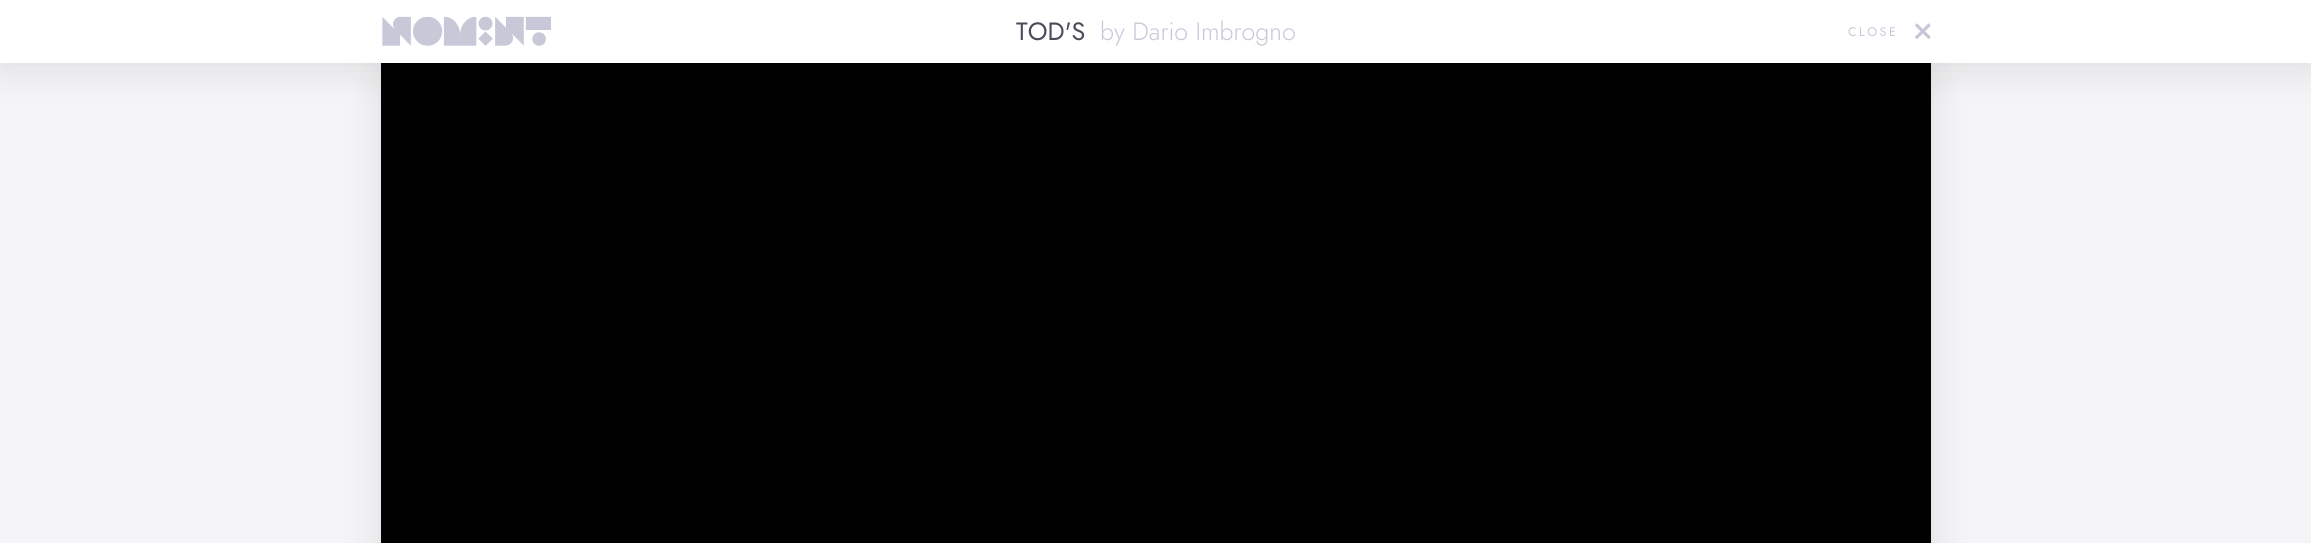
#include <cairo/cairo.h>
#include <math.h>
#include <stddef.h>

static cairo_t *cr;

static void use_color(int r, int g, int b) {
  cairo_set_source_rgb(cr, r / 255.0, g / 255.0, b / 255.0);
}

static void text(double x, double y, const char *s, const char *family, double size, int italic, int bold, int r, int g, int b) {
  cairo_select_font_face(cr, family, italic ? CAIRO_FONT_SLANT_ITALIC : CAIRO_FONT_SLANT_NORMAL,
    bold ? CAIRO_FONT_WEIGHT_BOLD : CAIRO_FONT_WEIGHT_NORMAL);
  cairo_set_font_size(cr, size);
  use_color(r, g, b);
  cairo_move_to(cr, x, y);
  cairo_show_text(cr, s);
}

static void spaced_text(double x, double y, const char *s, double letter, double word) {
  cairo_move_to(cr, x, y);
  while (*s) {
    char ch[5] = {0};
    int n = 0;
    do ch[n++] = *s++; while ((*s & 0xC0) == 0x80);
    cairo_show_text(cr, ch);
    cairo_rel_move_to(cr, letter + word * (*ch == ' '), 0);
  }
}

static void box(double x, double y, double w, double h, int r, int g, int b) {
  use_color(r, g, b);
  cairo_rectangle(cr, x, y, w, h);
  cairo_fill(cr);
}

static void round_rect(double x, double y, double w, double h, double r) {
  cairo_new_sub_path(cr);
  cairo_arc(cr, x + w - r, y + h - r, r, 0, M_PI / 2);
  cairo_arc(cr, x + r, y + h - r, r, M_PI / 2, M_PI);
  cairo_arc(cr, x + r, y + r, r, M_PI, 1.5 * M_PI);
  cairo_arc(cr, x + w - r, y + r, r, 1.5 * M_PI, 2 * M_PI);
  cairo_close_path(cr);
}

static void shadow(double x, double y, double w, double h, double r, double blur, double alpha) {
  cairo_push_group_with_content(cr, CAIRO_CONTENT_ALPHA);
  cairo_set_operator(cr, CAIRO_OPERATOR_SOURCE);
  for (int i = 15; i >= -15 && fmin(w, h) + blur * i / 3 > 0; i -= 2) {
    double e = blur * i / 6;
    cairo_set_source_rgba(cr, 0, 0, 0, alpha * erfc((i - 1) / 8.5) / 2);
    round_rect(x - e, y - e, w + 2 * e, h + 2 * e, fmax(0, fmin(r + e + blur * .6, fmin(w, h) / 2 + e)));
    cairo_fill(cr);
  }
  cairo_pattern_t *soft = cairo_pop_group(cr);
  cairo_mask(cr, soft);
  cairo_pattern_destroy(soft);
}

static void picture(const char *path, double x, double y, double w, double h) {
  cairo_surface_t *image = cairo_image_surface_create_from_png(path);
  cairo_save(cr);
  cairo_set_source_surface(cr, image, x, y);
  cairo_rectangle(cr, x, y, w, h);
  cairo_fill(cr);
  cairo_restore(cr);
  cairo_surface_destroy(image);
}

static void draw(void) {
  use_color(245, 245, 247);
  cairo_paint(cr);
  use_color(1, 2, 9);
  shadow(381, 69, 1550, 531, 0, 19, 0.1);
  box(381, 63, 1550, 480, 0, 0, 0);
  use_color(1, 2, 9);
  shadow(0, 6, 2311, 63, 0, 19, 0.1);
  box(0, 0, 2311, 63, 255, 255, 255);
  picture("img_01.png", 382, 16, 169, 30);
  picture("img_02.png", 1915, 23, 16, 16);
  text(1016, 40, "TOD'S", "Jost", 25, 0, 0, 75, 75, 89);
  text(1100, 40, "by Dario Imbrogno", "Jost Light", 25, 0, 0, 200, 201, 216);
  cairo_select_font_face(cr, "Jost", CAIRO_FONT_SLANT_NORMAL, CAIRO_FONT_WEIGHT_NORMAL);
  cairo_set_font_size(cr, 12.5);
  spaced_text(1848, 36, "CLOSE", 2.5, 0);
}

int main(void) {
  cairo_surface_t *surface = cairo_image_surface_create(CAIRO_FORMAT_RGB24, 2311, 543);
  cr = cairo_create(surface);
  cairo_font_options_t *options = cairo_font_options_create();
  cairo_font_options_set_hint_metrics(options, CAIRO_HINT_METRICS_OFF);
  cairo_font_options_set_hint_style(options, CAIRO_HINT_STYLE_NONE);
  cairo_set_font_options(cr, options);
  cairo_set_miter_limit(cr, 4);
  draw();
  cairo_surface_write_to_png(surface, "out.png");
  cairo_font_options_destroy(options);
  cairo_destroy(cr);
  cairo_surface_destroy(surface);
  return 0;
}
